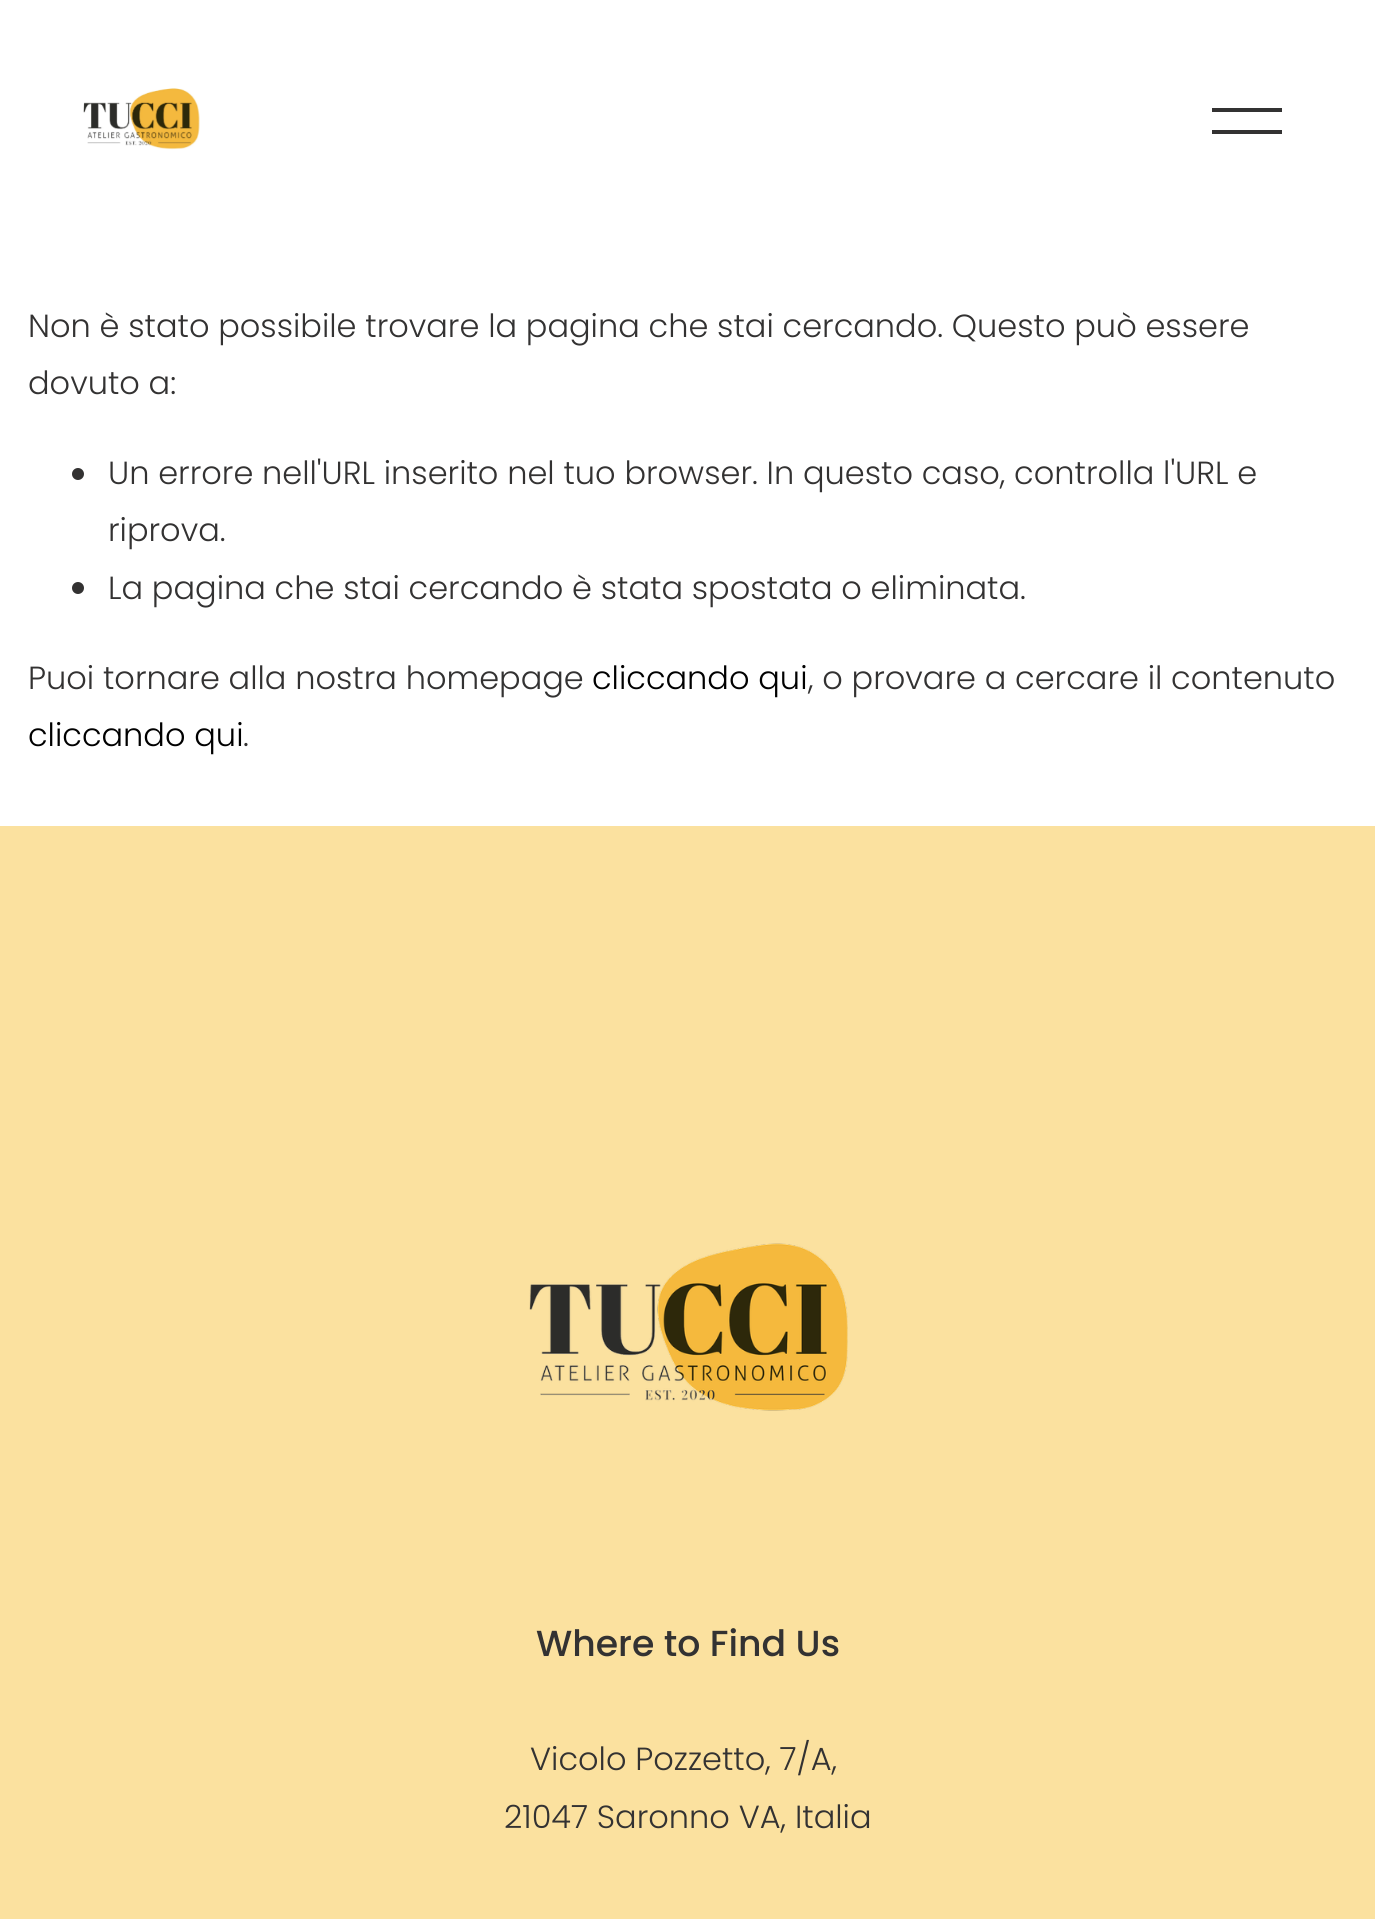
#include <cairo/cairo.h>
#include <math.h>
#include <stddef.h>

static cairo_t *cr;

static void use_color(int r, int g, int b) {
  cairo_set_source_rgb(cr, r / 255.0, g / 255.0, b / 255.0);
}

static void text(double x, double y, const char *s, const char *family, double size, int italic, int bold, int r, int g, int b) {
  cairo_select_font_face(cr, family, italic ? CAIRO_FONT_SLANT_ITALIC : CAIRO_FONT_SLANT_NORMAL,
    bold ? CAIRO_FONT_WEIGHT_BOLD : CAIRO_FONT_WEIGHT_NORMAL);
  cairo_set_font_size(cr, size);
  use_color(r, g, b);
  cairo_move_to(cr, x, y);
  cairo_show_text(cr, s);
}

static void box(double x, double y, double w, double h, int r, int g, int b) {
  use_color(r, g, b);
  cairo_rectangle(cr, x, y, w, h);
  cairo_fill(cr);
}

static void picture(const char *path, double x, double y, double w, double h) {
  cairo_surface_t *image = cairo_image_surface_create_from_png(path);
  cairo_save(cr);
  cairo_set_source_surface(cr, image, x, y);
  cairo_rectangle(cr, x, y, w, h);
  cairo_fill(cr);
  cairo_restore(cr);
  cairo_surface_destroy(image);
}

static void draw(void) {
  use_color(255, 255, 255);
  cairo_paint(cr);
  picture("img_01.png", 83, 88, 117, 62);
  box(1212, 108, 70, 4, 51, 50, 50);
  box(1212, 130, 70, 4, 51, 50, 50);
  cairo_arc(cr, 78, 474, 6, 0, 2 * M_PI);
  cairo_fill(cr);
  cairo_arc(cr, 78, 588, 6, 0, 2 * M_PI);
  cairo_fill(cr);
  box(0, 826, 1375, 1093, 251, 225, 159);
  picture("img_02.png", 529, 1243, 319, 168);
  text(28, 337, "Non è stato possibile trovare la pagina che stai cercando. Questo può essere", "Poppins Light", 32, 0, 0, 51, 50, 50);
  text(28, 394, "dovuto a:", "Poppins Light", 32, 0, 0, 51, 50, 50);
  text(108, 484, "Un errore nell'URL inserito nel tuo browser. In questo caso, controlla l'URL e", "Poppins Light", 32, 0, 0, 51, 50, 50);
  text(108, 541, "riprova.", "Poppins Light", 32, 0, 0, 51, 50, 50);
  text(108, 599, "La pagina che stai cercando è stata spostata o eliminata.", "Poppins Light", 32, 0, 0, 51, 50, 50);
  text(28, 689, "Puoi tornare alla nostra homepage", "Poppins Light", 32, 0, 0, 51, 50, 50);
  text(592, 689, "cliccando qui", "Poppins Light", 32, 0, 0, 0, 0, 0);
  text(808, 689, ", o provare a cercare il contenuto", "Poppins Light", 32, 0, 0, 51, 50, 50);
  text(28, 746, "cliccando qui", "Poppins Light", 32, 0, 0, 0, 0, 0);
  text(243, 746, ".", "Poppins Light", 32, 0, 0, 51, 50, 50);
  text(536, 1656, "Where to Find Us", "Poppins Medium", 36.25, 0, 0, 51, 50, 50);
  text(530, 1770, "Vicolo Pozzetto, 7/A,", "Poppins Light", 32, 0, 0, 51, 50, 50);
  text(504, 1828, "21047 Saronno VA, Italia", "Poppins Light", 32, 0, 0, 51, 50, 50);
}

int main(void) {
  cairo_surface_t *surface = cairo_image_surface_create(CAIRO_FORMAT_RGB24, 1375, 1919);
  cr = cairo_create(surface);
  cairo_font_options_t *options = cairo_font_options_create();
  cairo_font_options_set_hint_metrics(options, CAIRO_HINT_METRICS_OFF);
  cairo_font_options_set_hint_style(options, CAIRO_HINT_STYLE_NONE);
  cairo_set_font_options(cr, options);
  cairo_set_miter_limit(cr, 4);
  draw();
  cairo_surface_write_to_png(surface, "out.png");
  cairo_font_options_destroy(options);
  cairo_destroy(cr);
  cairo_surface_destroy(surface);
  return 0;
}
